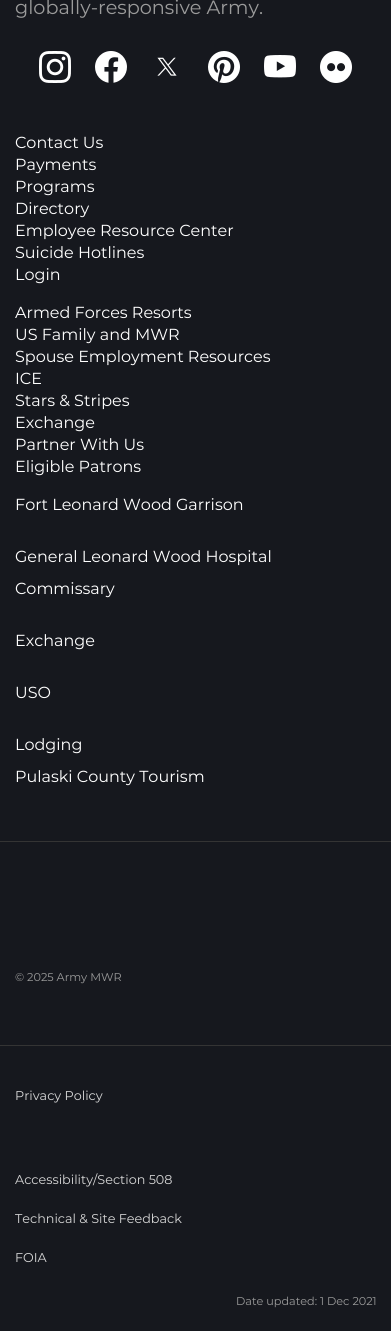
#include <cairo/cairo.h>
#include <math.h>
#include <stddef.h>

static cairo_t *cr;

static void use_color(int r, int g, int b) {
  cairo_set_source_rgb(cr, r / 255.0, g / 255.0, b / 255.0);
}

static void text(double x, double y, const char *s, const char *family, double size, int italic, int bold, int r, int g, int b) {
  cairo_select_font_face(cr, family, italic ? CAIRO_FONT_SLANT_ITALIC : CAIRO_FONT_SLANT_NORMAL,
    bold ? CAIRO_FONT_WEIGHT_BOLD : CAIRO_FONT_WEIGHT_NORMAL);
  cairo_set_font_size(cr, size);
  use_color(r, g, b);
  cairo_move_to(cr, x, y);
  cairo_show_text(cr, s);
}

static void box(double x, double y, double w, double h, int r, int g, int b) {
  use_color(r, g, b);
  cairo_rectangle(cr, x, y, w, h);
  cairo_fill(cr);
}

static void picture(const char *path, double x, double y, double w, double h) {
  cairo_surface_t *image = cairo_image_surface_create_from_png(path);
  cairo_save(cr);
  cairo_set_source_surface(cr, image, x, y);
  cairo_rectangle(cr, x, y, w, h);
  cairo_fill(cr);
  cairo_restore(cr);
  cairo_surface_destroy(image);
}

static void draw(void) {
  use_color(22, 24, 30);
  cairo_paint(cr);
  picture("img_01.png", 39, 51, 32, 32);
  picture("img_02.png", 95, 51, 32, 32);
  picture("img_03.png", 157, 57, 20, 19);
  picture("img_04.png", 208, 51, 32, 32);
  picture("img_05.png", 264, 55, 32, 23);
  picture("img_06.png", 320, 51, 32, 32);
  box(0, 841, 391, 1, 52, 52, 52);
  box(0, 1045, 391, 1, 52, 52, 52);
  text(15, 14, "globally-responsive Army.", "Montserrat", 19.25, 0, 0, 155, 155, 155);
  text(15, 148, "Contact Us", "Montserrat", 16, 0, 0, 255, 255, 255);
  text(15, 170, "Payments", "Montserrat", 16, 0, 0, 255, 255, 255);
  text(15, 192, "Programs", "Montserrat", 16, 0, 0, 255, 255, 255);
  text(15, 214, "Directory", "Montserrat", 16, 0, 0, 255, 255, 255);
  text(15, 236, "Employee Resource Center", "Montserrat", 16, 0, 0, 255, 255, 255);
  text(15, 258, "Suicide Hotlines", "Montserrat", 16, 0, 0, 255, 255, 255);
  text(15, 280, "Login", "Montserrat", 16, 0, 0, 255, 255, 255);
  text(15, 318, "Armed Forces Resorts", "Montserrat", 16, 0, 0, 255, 255, 255);
  text(15, 340, "US Family and MWR", "Montserrat", 16, 0, 0, 255, 255, 255);
  text(15, 362, "Spouse Employment Resources", "Montserrat", 16, 0, 0, 255, 255, 255);
  text(15, 384, "ICE", "Montserrat", 16, 0, 0, 255, 255, 255);
  text(15, 406, "Stars & Stripes", "Montserrat", 16, 0, 0, 255, 255, 255);
  text(15, 428, "Exchange", "Montserrat", 16, 0, 0, 255, 255, 255);
  text(15, 450, "Partner With Us", "Montserrat", 16, 0, 0, 255, 255, 255);
  text(15, 472, "Eligible Patrons", "Montserrat", 16, 0, 0, 255, 255, 255);
  text(15, 510, "Fort Leonard Wood Garrison", "Montserrat", 16, 0, 0, 255, 255, 255);
  text(15, 562, "General Leonard Wood Hospital", "Montserrat", 16, 0, 0, 255, 255, 255);
  text(15, 594, "Commissary", "Montserrat", 16, 0, 0, 255, 255, 255);
  text(15, 646, "Exchange", "Montserrat", 16, 0, 0, 255, 255, 255);
  text(15, 698, "USO", "Montserrat", 16, 0, 0, 255, 255, 255);
  text(15, 750, "Lodging", "Montserrat", 16, 0, 0, 255, 255, 255);
  text(15, 782, "Pulaski County Tourism", "Montserrat", 16, 0, 0, 255, 255, 255);
  text(15, 981, "© 2025 Army MWR", "Montserrat", 11.25, 0, 0, 155, 155, 155);
  text(15, 1100, "Privacy Policy", "Montserrat", 12.75, 0, 0, 216, 216, 216);
  text(15, 1184, "Accessibility/Section 508", "Montserrat", 12.75, 0, 0, 216, 216, 216);
  text(15, 1223, "Technical & Site Feedback", "Montserrat", 12.75, 0, 0, 216, 216, 216);
  text(15, 1262, "FOIA", "Montserrat", 12.75, 0, 0, 216, 216, 216);
  text(236, 1305, "Date updated: 1 Dec 2021", "Montserrat", 11.25, 0, 0, 155, 155, 155);
}

int main(void) {
  cairo_surface_t *surface = cairo_image_surface_create(CAIRO_FORMAT_RGB24, 391, 1331);
  cr = cairo_create(surface);
  cairo_font_options_t *options = cairo_font_options_create();
  cairo_font_options_set_hint_metrics(options, CAIRO_HINT_METRICS_OFF);
  cairo_font_options_set_hint_style(options, CAIRO_HINT_STYLE_NONE);
  cairo_set_font_options(cr, options);
  cairo_set_miter_limit(cr, 4);
  draw();
  cairo_surface_write_to_png(surface, "out.png");
  cairo_font_options_destroy(options);
  cairo_destroy(cr);
  cairo_surface_destroy(surface);
  return 0;
}
